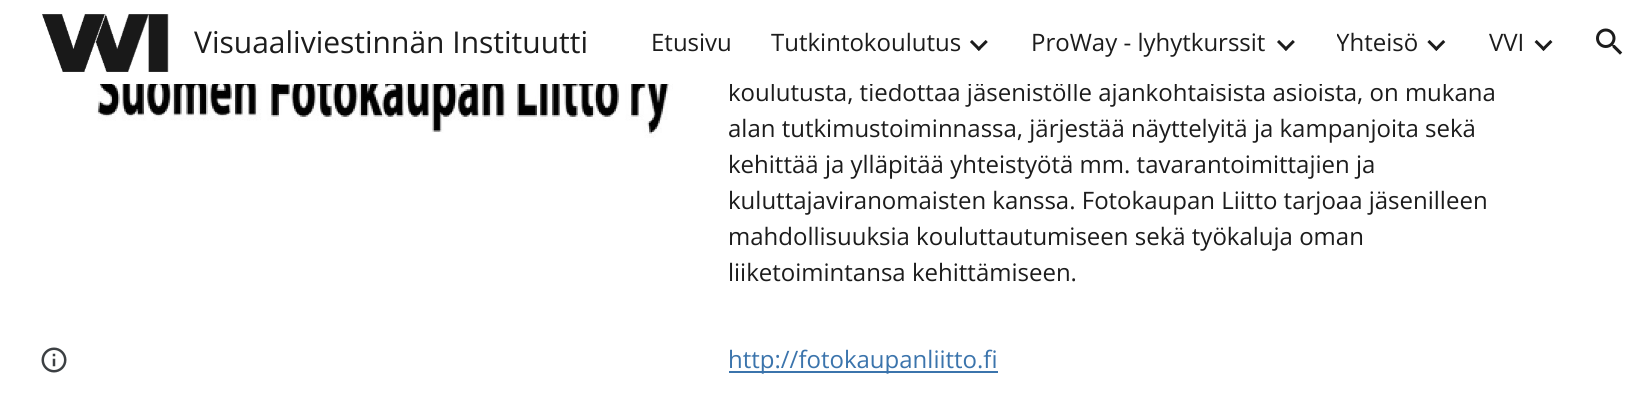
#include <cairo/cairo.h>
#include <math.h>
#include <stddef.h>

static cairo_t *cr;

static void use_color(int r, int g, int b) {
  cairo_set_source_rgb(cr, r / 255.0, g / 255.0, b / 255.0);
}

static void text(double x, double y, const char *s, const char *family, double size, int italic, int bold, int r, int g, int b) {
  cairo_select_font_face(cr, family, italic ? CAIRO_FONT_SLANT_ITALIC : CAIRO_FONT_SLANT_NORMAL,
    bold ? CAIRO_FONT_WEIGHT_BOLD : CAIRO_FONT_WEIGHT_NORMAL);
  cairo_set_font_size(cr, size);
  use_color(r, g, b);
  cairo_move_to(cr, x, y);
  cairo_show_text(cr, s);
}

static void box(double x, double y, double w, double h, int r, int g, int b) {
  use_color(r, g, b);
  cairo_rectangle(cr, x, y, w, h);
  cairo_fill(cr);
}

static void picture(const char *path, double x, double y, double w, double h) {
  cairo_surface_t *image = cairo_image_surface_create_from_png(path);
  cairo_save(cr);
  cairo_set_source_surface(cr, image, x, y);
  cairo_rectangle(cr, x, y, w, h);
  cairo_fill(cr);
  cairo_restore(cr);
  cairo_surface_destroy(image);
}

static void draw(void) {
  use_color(255, 255, 255);
  cairo_paint(cr);
  picture("img_01.png", 42, 14, 127, 58);
  picture("img_02.png", 970, 40, 18, 11);
  picture("img_03.png", 1277, 40, 18, 11);
  picture("img_04.png", 1427, 40, 19, 11);
  picture("img_05.png", 1534, 40, 19, 11);
  picture("img_06.png", 1596, 28, 27, 27);
  picture("img_07.png", 41, 347, 26, 26);
  picture("img_08.png", 96, 84, 577, 54);
  box(729, 371, 269, 2, 59, 116, 172);
  text(194, 53, "Visuaaliviestinnän Instituutti", "Open Sans", 30, 0, 0, 28, 28, 28);
  text(651, 51, "Etusivu", "Open Sans", 24, 0, 0, 28, 28, 28);
  text(771, 51, "Tutkintokoulutus", "Open Sans", 24, 0, 0, 28, 28, 28);
  text(1031, 51, "ProWay - lyhytkurssit", "Open Sans", 24, 0, 0, 28, 28, 28);
  cairo_save(cr);
  cairo_rectangle(cr, 1337, 26, 81, 33);
  cairo_clip(cr);
  text(1336, 51, "Yhteisö", "Open Sans", 24, 0, 0, 28, 28, 28);
  cairo_restore(cr);
  text(1489, 51, "VVI", "Open Sans", 24, 0, 0, 28, 28, 28);
  text(728, 101, "koulutusta, tiedottaa jäsenistölle ajankohtaisista asioista, on mukana", "Open Sans", 24, 0, 0, 28, 28, 28);
  box(730, 82, 717, 2, 255, 255, 255);
  text(728, 137, "alan tutkimustoiminnassa, järjestää näyttelyitä ja kampanjoita sekä", "Open Sans", 24, 0, 0, 28, 28, 28);
  text(728, 173, "kehittää ja ylläpitää yhteistyötä mm. tavarantoimittajien ja", "Open Sans", 24, 0, 0, 28, 28, 28);
  text(728, 209, "kuluttajaviranomaisten kanssa. Fotokaupan Liitto tarjoaa jäsenilleen", "Open Sans", 24, 0, 0, 28, 28, 28);
  text(728, 245, "mahdollisuuksia kouluttautumiseen sekä työkaluja oman", "Open Sans", 24, 0, 0, 28, 28, 28);
  text(728, 281, "liiketoimintansa kehittämiseen.", "Open Sans", 24, 0, 0, 28, 28, 28);
  text(728, 368, "http://fotokaupanliitto.fi", "Open Sans", 24, 0, 0, 59, 116, 172);
}

int main(void) {
  cairo_surface_t *surface = cairo_image_surface_create(CAIRO_FORMAT_RGB24, 1645, 411);
  cr = cairo_create(surface);
  cairo_font_options_t *options = cairo_font_options_create();
  cairo_font_options_set_hint_metrics(options, CAIRO_HINT_METRICS_OFF);
  cairo_font_options_set_hint_style(options, CAIRO_HINT_STYLE_NONE);
  cairo_set_font_options(cr, options);
  cairo_set_miter_limit(cr, 4);
  draw();
  cairo_surface_write_to_png(surface, "out.png");
  cairo_font_options_destroy(options);
  cairo_destroy(cr);
  cairo_surface_destroy(surface);
  return 0;
}
